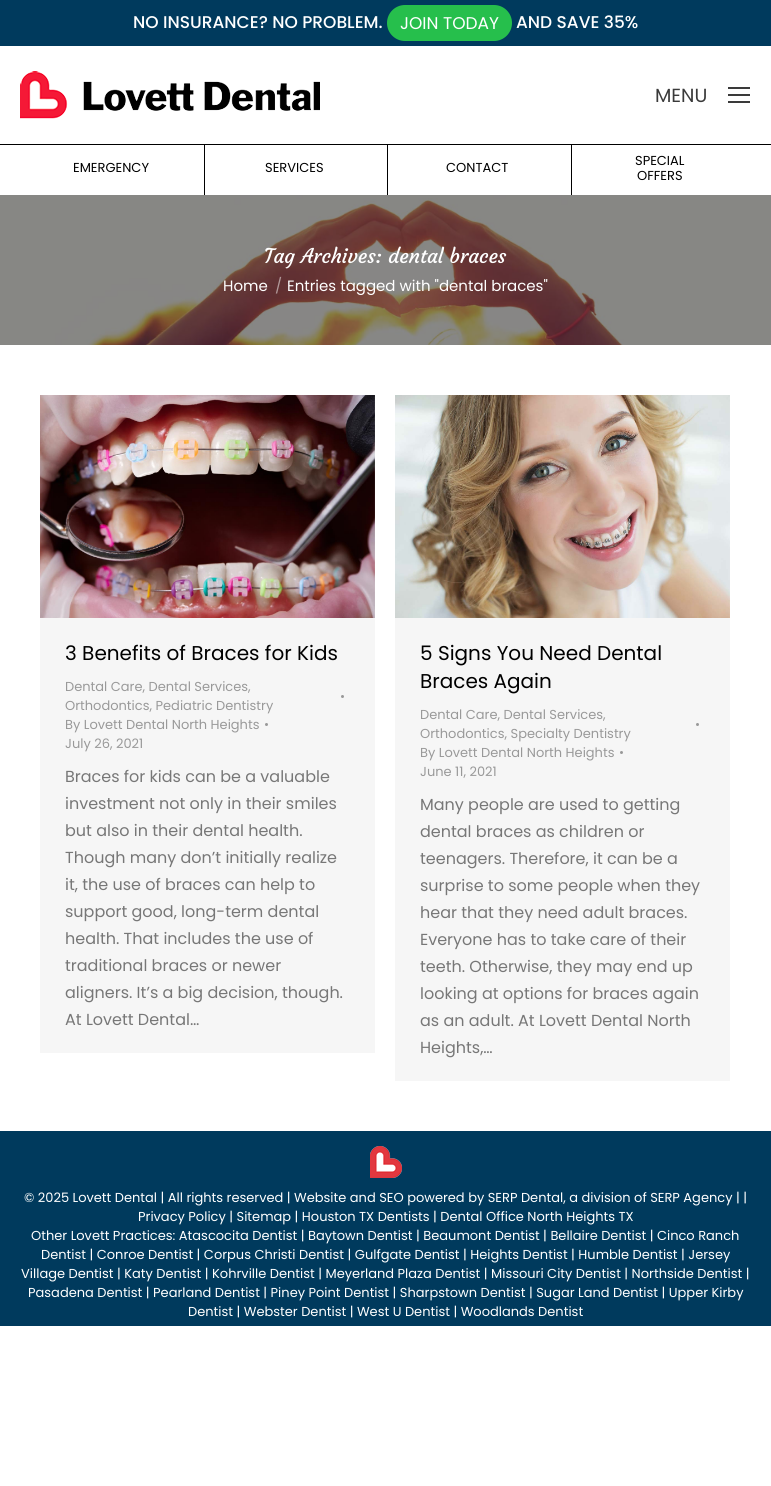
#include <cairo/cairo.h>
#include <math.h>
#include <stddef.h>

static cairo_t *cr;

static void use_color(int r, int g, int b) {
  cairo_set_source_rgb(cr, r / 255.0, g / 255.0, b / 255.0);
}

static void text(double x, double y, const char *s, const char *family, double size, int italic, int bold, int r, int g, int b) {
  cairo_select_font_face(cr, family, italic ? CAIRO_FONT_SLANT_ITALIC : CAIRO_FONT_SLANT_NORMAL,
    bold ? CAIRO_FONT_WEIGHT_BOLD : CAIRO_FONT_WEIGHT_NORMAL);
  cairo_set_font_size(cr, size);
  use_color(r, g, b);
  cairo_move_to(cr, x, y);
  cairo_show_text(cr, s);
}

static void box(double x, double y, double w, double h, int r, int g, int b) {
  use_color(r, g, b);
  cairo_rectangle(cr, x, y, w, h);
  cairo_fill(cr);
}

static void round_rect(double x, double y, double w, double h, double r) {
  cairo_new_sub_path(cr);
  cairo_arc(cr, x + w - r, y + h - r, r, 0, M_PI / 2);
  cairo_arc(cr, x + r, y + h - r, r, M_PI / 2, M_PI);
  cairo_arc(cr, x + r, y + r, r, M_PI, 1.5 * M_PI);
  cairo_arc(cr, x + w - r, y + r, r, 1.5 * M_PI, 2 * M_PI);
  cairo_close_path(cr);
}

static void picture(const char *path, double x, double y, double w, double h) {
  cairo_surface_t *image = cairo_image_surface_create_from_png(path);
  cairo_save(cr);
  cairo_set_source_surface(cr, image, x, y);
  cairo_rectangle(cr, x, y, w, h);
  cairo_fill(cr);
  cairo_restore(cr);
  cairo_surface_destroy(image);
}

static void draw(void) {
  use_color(255, 255, 255);
  cairo_paint(cr);
  box(0, 0, 771, 46, 0, 58, 93);
  use_color(38, 191, 76);
  round_rect(387, 5, 125, 36, 18);
  cairo_fill(cr);
  picture("img_01.png", 20, 71, 300, 48);
  box(728, 87, 22, 2, 58, 58, 58);
  box(728, 94, 22, 2, 58, 58, 58);
  box(728, 101, 22, 2, 58, 58, 58);
  box(0, 144, 771, 1, 0, 0, 0);
  box(204, 145, 1, 50, 0, 0, 0);
  box(387, 145, 1, 50, 0, 0, 0);
  box(571, 145, 1, 50, 0, 0, 0);
  picture("img_02.png", 0, 195, 771, 150);
  box(40, 395, 335, 658, 246, 246, 246);
  picture("img_03.png", 40, 395, 335, 223);
  use_color(153, 153, 153);
  cairo_arc(cr, 342.5, 696.5, 1.5, 0, 2 * M_PI);
  cairo_fill(cr);
  cairo_arc(cr, 266.5, 724.5, 1.5, 0, 2 * M_PI);
  cairo_fill(cr);
  box(395, 395, 335, 686, 246, 246, 246);
  picture("img_04.png", 395, 395, 335, 223);
  use_color(153, 153, 153);
  cairo_arc(cr, 697.5, 724.5, 1.5, 0, 2 * M_PI);
  cairo_fill(cr);
  cairo_arc(cr, 621.5, 752.5, 1.5, 0, 2 * M_PI);
  cairo_fill(cr);
  box(0, 1131, 771, 195, 0, 58, 93);
  picture("img_05.png", 370, 1146, 32, 32);
  text(133, 28, "NO INSURANCE? NO PROBLEM.", "Poppins Medium", 17, 0, 0, 255, 255, 255);
  text(400, 29, "JOIN TODAY", "Poppins", 17, 0, 0, 255, 255, 255);
  text(516, 28, "AND SAVE 35%", "Poppins Medium", 17, 0, 0, 255, 255, 255);
  text(655, 102, "MENU", "Poppins", 19, 0, 0, 58, 58, 58);
  text(73, 172, "EMERGENCY", "Poppins", 13, 0, 0, 0, 0, 0);
  text(265, 172, "SERVICES", "Poppins", 13, 0, 0, 0, 0, 0);
  text(446, 172, "CONTACT", "Poppins", 13, 0, 0, 0, 0, 0);
  text(635, 165, "SPECIAL", "Poppins", 13, 0, 0, 0, 0, 0);
  text(637, 180, "OFFERS", "Poppins", 13, 0, 0, 0, 0, 0);
  text(264, 263, "Tag Archives: dental braces", "Courgette", 20, 0, 0, 255, 255, 255);
  text(223, 291, "Home", "Poppins", 15, 0, 0, 255, 255, 255);
  text(275, 291, "/", "Poppins", 15, 0, 0, 176, 152, 153);
  text(287, 291, "Entries tagged with \"dental braces\"", "Poppins", 15, 0, 0, 255, 255, 255);
  text(65, 660, "3 Benefits of Braces for Kids", "Poppins", 20, 0, 0, 0, 0, 0);
  text(65, 691, "Dental Care, Dental Services,", "Poppins", 13, 0, 0, 153, 153, 153);
  text(65, 710, "Orthodontics, Pediatric Dentistry", "Poppins", 13, 0, 0, 153, 153, 153);
  text(65, 729, "By Lovett Dental North Heights", "Poppins", 13, 0, 0, 153, 153, 153);
  text(65, 748, "July 26, 2021", "Poppins", 13, 0, 0, 153, 153, 153);
  text(65, 782, "Braces for kids can be a valuable", "Poppins", 16, 0, 0, 119, 119, 119);
  text(65, 809, "investment not only in their smiles", "Poppins", 16, 0, 0, 119, 119, 119);
  text(65, 836, "but also in their dental health.", "Poppins", 16, 0, 0, 119, 119, 119);
  text(65, 863, "Though many don’t initially realize", "Poppins", 16, 0, 0, 119, 119, 119);
  text(65, 890, "it, the use of braces can help to", "Poppins", 16, 0, 0, 119, 119, 119);
  text(65, 917, "support good, long-term dental", "Poppins", 16, 0, 0, 119, 119, 119);
  text(65, 944, "health. That includes the use of", "Poppins", 16, 0, 0, 119, 119, 119);
  text(65, 971, "traditional braces or newer", "Poppins", 16, 0, 0, 119, 119, 119);
  text(65, 998, "aligners. It’s a big decision, though.", "Poppins", 16, 0, 0, 119, 119, 119);
  text(65, 1025, "At Lovett Dental…", "Poppins", 16, 0, 0, 119, 119, 119);
  text(420, 660, "5 Signs You Need Dental", "Poppins", 20, 0, 0, 0, 0, 0);
  text(420, 688, "Braces Again", "Poppins", 20, 0, 0, 0, 0, 0);
  text(420, 719, "Dental Care, Dental Services,", "Poppins", 13, 0, 0, 153, 153, 153);
  text(420, 738, "Orthodontics, Specialty Dentistry", "Poppins", 13, 0, 0, 153, 153, 153);
  text(420, 757, "By Lovett Dental North Heights", "Poppins", 13, 0, 0, 153, 153, 153);
  text(420, 776, "June 11, 2021", "Poppins", 13, 0, 0, 153, 153, 153);
  text(420, 810, "Many people are used to getting", "Poppins", 16, 0, 0, 119, 119, 119);
  text(420, 837, "dental braces as children or", "Poppins", 16, 0, 0, 119, 119, 119);
  text(420, 864, "teenagers. Therefore, it can be a", "Poppins", 16, 0, 0, 119, 119, 119);
  text(420, 891, "surprise to some people when they", "Poppins", 16, 0, 0, 119, 119, 119);
  text(420, 918, "hear that they need adult braces.", "Poppins", 16, 0, 0, 119, 119, 119);
  text(420, 945, "Everyone has to take care of their", "Poppins", 16, 0, 0, 119, 119, 119);
  text(420, 972, "teeth. Otherwise, they may end up", "Poppins", 16, 0, 0, 119, 119, 119);
  text(420, 999, "looking at options for braces again", "Poppins", 16, 0, 0, 119, 119, 119);
  text(420, 1026, "as an adult. At Lovett Dental North", "Poppins", 16, 0, 0, 119, 119, 119);
  text(420, 1053, "Heights,…", "Poppins", 16, 0, 0, 119, 119, 119);
  text(24, 1202, "© 2025 Lovett Dental | All rights reserved | Website and SEO powered by SERP Dental, a division of SERP Agency | |", "Poppins", 13, 0, 0, 255, 255, 255);
  text(138, 1221, "Privacy Policy | Sitemap | Houston TX Dentists | Dental Office North Heights TX", "Poppins", 13, 0, 0, 255, 255, 255);
  text(31, 1240, "Other Lovett Practices: Atascocita Dentist | Baytown Dentist | Beaumont Dentist | Bellaire Dentist | Cinco Ranch", "Poppins", 13, 0, 0, 255, 255, 255);
  text(41, 1259, "Dentist | Conroe Dentist | Corpus Christi Dentist | Gulfgate Dentist | Heights Dentist | Humble Dentist | Jersey", "Poppins", 13, 0, 0, 255, 255, 255);
  text(21, 1278, "Village Dentist | Katy Dentist | Kohrville Dentist | Meyerland Plaza Dentist | Missouri City Dentist | Northside Dentist |", "Poppins", 13, 0, 0, 255, 255, 255);
  text(28, 1297, "Pasadena Dentist | Pearland Dentist | Piney Point Dentist | Sharpstown Dentist | Sugar Land Dentist | Upper Kirby", "Poppins", 13, 0, 0, 255, 255, 255);
  text(188, 1316, "Dentist | Webster Dentist | West U Dentist | Woodlands Dentist", "Poppins", 13, 0, 0, 255, 255, 255);
}

int main(void) {
  cairo_surface_t *surface = cairo_image_surface_create(CAIRO_FORMAT_RGB24, 771, 1486);
  cr = cairo_create(surface);
  cairo_font_options_t *options = cairo_font_options_create();
  cairo_font_options_set_hint_metrics(options, CAIRO_HINT_METRICS_OFF);
  cairo_font_options_set_hint_style(options, CAIRO_HINT_STYLE_NONE);
  cairo_set_font_options(cr, options);
  cairo_set_miter_limit(cr, 4);
  draw();
  cairo_surface_write_to_png(surface, "out.png");
  cairo_font_options_destroy(options);
  cairo_destroy(cr);
  cairo_surface_destroy(surface);
  return 0;
}
